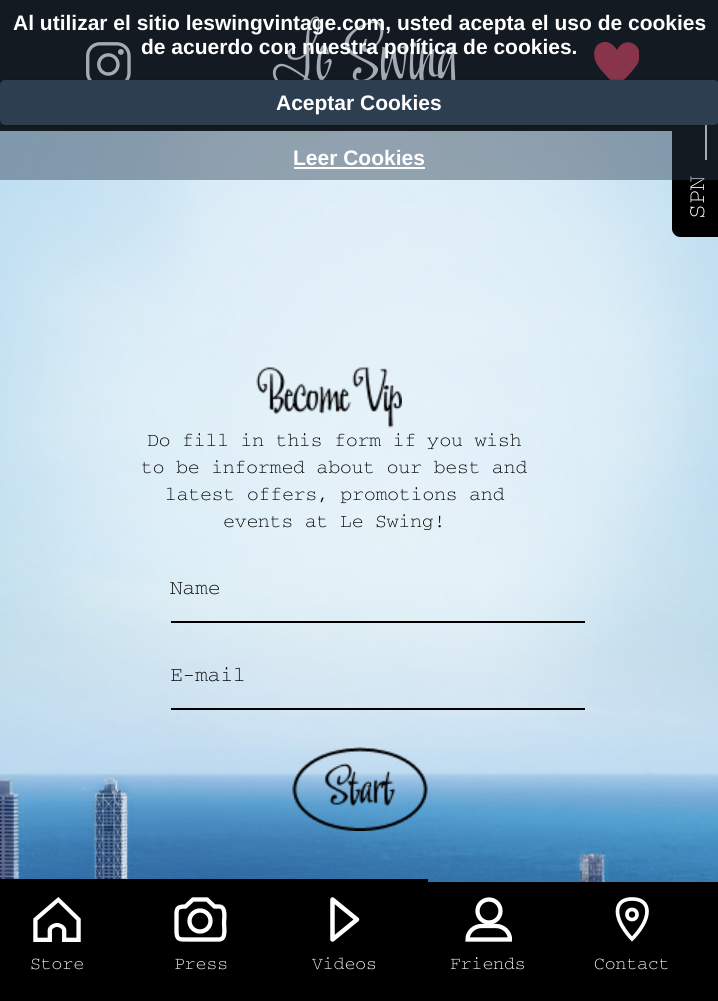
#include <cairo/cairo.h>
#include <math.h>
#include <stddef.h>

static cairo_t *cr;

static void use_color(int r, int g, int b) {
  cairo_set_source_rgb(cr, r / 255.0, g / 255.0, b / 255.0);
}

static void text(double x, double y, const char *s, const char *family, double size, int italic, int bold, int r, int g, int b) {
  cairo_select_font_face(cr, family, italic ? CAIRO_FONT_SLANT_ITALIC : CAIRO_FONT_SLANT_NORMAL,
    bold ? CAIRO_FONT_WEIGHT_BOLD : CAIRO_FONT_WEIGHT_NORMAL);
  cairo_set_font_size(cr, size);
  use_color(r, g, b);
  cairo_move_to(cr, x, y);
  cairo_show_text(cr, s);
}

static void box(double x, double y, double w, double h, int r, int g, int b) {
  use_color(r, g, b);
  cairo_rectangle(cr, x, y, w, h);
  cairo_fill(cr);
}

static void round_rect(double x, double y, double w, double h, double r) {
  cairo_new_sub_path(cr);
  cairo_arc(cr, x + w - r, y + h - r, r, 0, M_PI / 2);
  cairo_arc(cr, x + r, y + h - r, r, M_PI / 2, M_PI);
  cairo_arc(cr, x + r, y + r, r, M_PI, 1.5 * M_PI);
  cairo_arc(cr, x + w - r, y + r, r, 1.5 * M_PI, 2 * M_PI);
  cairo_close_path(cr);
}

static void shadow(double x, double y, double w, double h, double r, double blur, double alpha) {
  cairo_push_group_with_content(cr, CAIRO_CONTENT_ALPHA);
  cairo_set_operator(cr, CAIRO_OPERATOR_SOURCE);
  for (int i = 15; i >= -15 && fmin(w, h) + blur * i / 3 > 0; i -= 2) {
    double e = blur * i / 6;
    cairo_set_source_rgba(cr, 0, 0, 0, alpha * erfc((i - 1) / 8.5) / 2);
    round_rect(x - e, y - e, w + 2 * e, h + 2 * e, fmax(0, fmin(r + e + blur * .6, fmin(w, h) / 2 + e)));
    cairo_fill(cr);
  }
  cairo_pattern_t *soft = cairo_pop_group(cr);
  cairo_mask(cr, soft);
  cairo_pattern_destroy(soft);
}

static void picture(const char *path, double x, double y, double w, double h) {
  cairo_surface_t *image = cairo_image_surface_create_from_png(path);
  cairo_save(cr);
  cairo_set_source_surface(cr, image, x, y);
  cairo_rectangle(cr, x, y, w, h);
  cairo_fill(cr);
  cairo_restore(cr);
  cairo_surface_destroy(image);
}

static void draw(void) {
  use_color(255, 255, 255);
  cairo_paint(cr);
  box(0, 0, 718, 131, 0, 0, 0);
  picture("img_01.png", 86, 42, 45, 38);
  picture("img_02.png", 272, 16, 185, 64);
  cairo_save(cr);
  cairo_rectangle(cr, 594, 42, 45, 45);
  cairo_clip(cr);
  use_color(205, 45, 71);
  cairo_new_path(cr);
  cairo_move_to(cr, 604, 42);
  cairo_curve_to(cr, 591, 44, 593, 59, 598, 66);
  cairo_curve_to(cr, 601, 71, 617, 87, 617, 87);
  cairo_curve_to(cr, 623, 81, 634, 70, 638, 63);
  cairo_curve_to(cr, 646, 45, 625, 34, 617, 50);
  cairo_curve_to(cr, 617, 50, 612, 41, 604, 42);
  cairo_close_path(cr);
  cairo_fill(cr);
  cairo_restore(cr);
  picture("img_03.png", 0, 131, 718, 751);
  cairo_new_path(cr);
  cairo_move_to(cr, 672, 229);
  cairo_line_to(cr, 672, 107);
  cairo_curve_to(cr, 672, 103, 676, 99, 680, 99);
  cairo_line_to(cr, 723, 99);
  cairo_line_to(cr, 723, 237);
  cairo_line_to(cr, 680, 237);
  cairo_curve_to(cr, 676, 237, 672, 233, 672, 229);
  cairo_close_path(cr);
  cairo_fill(cr);
  box(705, 117, 2, 43, 255, 255, 255);
  picture("img_04.png", 256, 367, 146, 61);
  box(171, 621, 414, 2, 0, 0, 0);
  box(171, 708, 414, 2, 0, 0, 0);
  picture("img_05.png", 292, 747, 136, 84);
  box(0, 879, 428, 3, 0, 0, 0);
  box(0, 882, 718, 119, 0, 0, 0);
  picture("img_06.png", 33, 897, 48, 45);
  cairo_new_path(cr);
  cairo_move_to(cr, 219, 906.5);
  cairo_line_to(cr, 214.5, 906.5);
  cairo_line_to(cr, 207, 899.5);
  cairo_line_to(cr, 193, 899.5);
  cairo_line_to(cr, 185.5, 906.5);
  cairo_curve_to(cr, 175.5, 906.5, 176.5, 909.5, 176.5, 919.5);
  cairo_line_to(cr, 176.5, 930.5);
  cairo_curve_to(cr, 176.5, 940, 179, 939.5, 188, 939.5);
  cairo_line_to(cr, 219, 939.5);
  cairo_curve_to(cr, 226.5, 939.5, 224, 927.5, 224, 923);
  cairo_curve_to(cr, 224, 918.5, 226.5, 906.5, 219, 906.5);
  cairo_close_path(cr);
  use_color(255, 255, 255);
  cairo_set_line_width(cr, 4.3);
  cairo_set_line_cap(cr, CAIRO_LINE_CAP_ROUND);
  cairo_stroke(cr);
  cairo_arc(cr, 200, 921, 10.5, 0, 2 * M_PI);
  cairo_set_line_cap(cr, CAIRO_LINE_CAP_BUTT);
  cairo_stroke(cr);
  cairo_new_path(cr);
  cairo_move_to(cr, 332.5, 899.5);
  cairo_line_to(cr, 332.5, 939.5);
  cairo_line_to(cr, 357, 919.5);
  cairo_close_path(cr);
  cairo_set_line_width(cr, 4.5);
  cairo_set_line_cap(cr, CAIRO_LINE_CAP_ROUND);
  cairo_set_line_join(cr, CAIRO_LINE_JOIN_ROUND);
  cairo_stroke(cr);
  cairo_arc(cr, 489, 911, 11.5, 0, 2 * M_PI);
  cairo_set_line_width(cr, 4.3);
  cairo_set_line_cap(cr, CAIRO_LINE_CAP_BUTT);
  cairo_set_line_join(cr, CAIRO_LINE_JOIN_MITER);
  cairo_stroke(cr);
  cairo_save(cr);
  cairo_rectangle(cr, 465, 897, 47, 45);
  cairo_clip(cr);
  cairo_new_path(cr);
  cairo_move_to(cr, 510, 939.5);
  cairo_curve_to(cr, 510, 932, 503.5, 926, 496, 926);
  cairo_line_to(cr, 481.5, 926);
  cairo_curve_to(cr, 474, 926, 467.5, 932, 467.5, 939.5);
  cairo_close_path(cr);
  cairo_stroke(cr);
  cairo_restore(cr);
  cairo_new_path(cr);
  cairo_move_to(cr, 632, 899);
  cairo_curve_to(cr, 632, 899, 617.5, 898, 617.5, 911.5);
  cairo_curve_to(cr, 617.5, 924.5, 632, 939, 632, 939);
  cairo_curve_to(cr, 632, 939, 647, 924.5, 647, 911.5);
  cairo_curve_to(cr, 647, 898, 632, 899, 632, 899);
  cairo_close_path(cr);
  cairo_set_line_width(cr, 3.7);
  cairo_stroke(cr);
  cairo_arc(cr, 632, 914.5, 5, 0, 2 * M_PI);
  cairo_stroke(cr);
  cairo_save(cr);
  cairo_translate(cr, 704, 219);
  cairo_rotate(cr, -90 * M_PI / 180);
  text(0, 0, "SPN", "Courier", 24, 0, 0, 255, 255, 255);
  cairo_restore(cr);
  cairo_set_source_rgba(cr, 0.173, 0.243, 0.314, 0.43);
  cairo_rectangle(cr, 0, 0, 718, 180);
  cairo_fill(cr);
  text(293, 165, "Leer Cookies", "Liberation Sans", 21, 0, 1, 255, 255, 255);
  box(294, 167, 131, 2, 255, 255, 255);
  use_color(0, 0, 0);
  shadow(0, 80, 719, 45, 5, 1.5, 0.25);
  use_color(44, 62, 80);
  round_rect(0, 80, 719, 45, 5);
  cairo_fill(cr);
  text(276, 110, "Aceptar Cookies", "Liberation Sans", 21, 0, 1, 255, 255, 255);
  text(141, 54, "de acuerdo con nuestra política de cookies.", "Liberation Sans", 21, 0, 1, 255, 255, 255);
  text(13, 30, "Al utilizar el sitio leswingvintage.com, usted acepta el uso de cookies", "Liberation Sans", 21, 0, 1, 255, 255, 255);
  text(147, 446, "Do fill in this form if you wish", "Courier", 19.5, 0, 0, 0, 0, 0);
  text(141, 473, "to be informed about our best and", "Courier", 19.5, 0, 0, 0, 0, 0);
  text(165, 500, "latest offers, promotions and", "Courier", 19.5, 0, 0, 0, 0, 0);
  text(223, 527, "events at Le Swing!", "Courier", 19.5, 0, 0, 0, 0, 0);
  text(170, 594, "Name", "Courier", 21, 0, 0, 0, 0, 0);
  text(170, 681, "E-mail", "Courier", 21, 0, 0, 0, 0, 0);
  text(30, 969, "Store", "Courier", 18, 0, 0, 255, 255, 255);
  text(174, 969, "Press", "Courier", 18, 0, 0, 255, 255, 255);
  text(312, 969, "Videos", "Courier", 18, 0, 0, 255, 255, 255);
  text(450, 969, "Friends", "Courier", 18, 0, 0, 255, 255, 255);
  text(594, 969, "Contact", "Courier", 18, 0, 0, 255, 255, 255);
}

int main(void) {
  cairo_surface_t *surface = cairo_image_surface_create(CAIRO_FORMAT_RGB24, 718, 1001);
  cr = cairo_create(surface);
  cairo_font_options_t *options = cairo_font_options_create();
  cairo_font_options_set_hint_metrics(options, CAIRO_HINT_METRICS_OFF);
  cairo_font_options_set_hint_style(options, CAIRO_HINT_STYLE_NONE);
  cairo_set_font_options(cr, options);
  cairo_set_miter_limit(cr, 4);
  draw();
  cairo_surface_write_to_png(surface, "out.png");
  cairo_font_options_destroy(options);
  cairo_destroy(cr);
  cairo_surface_destroy(surface);
  return 0;
}
